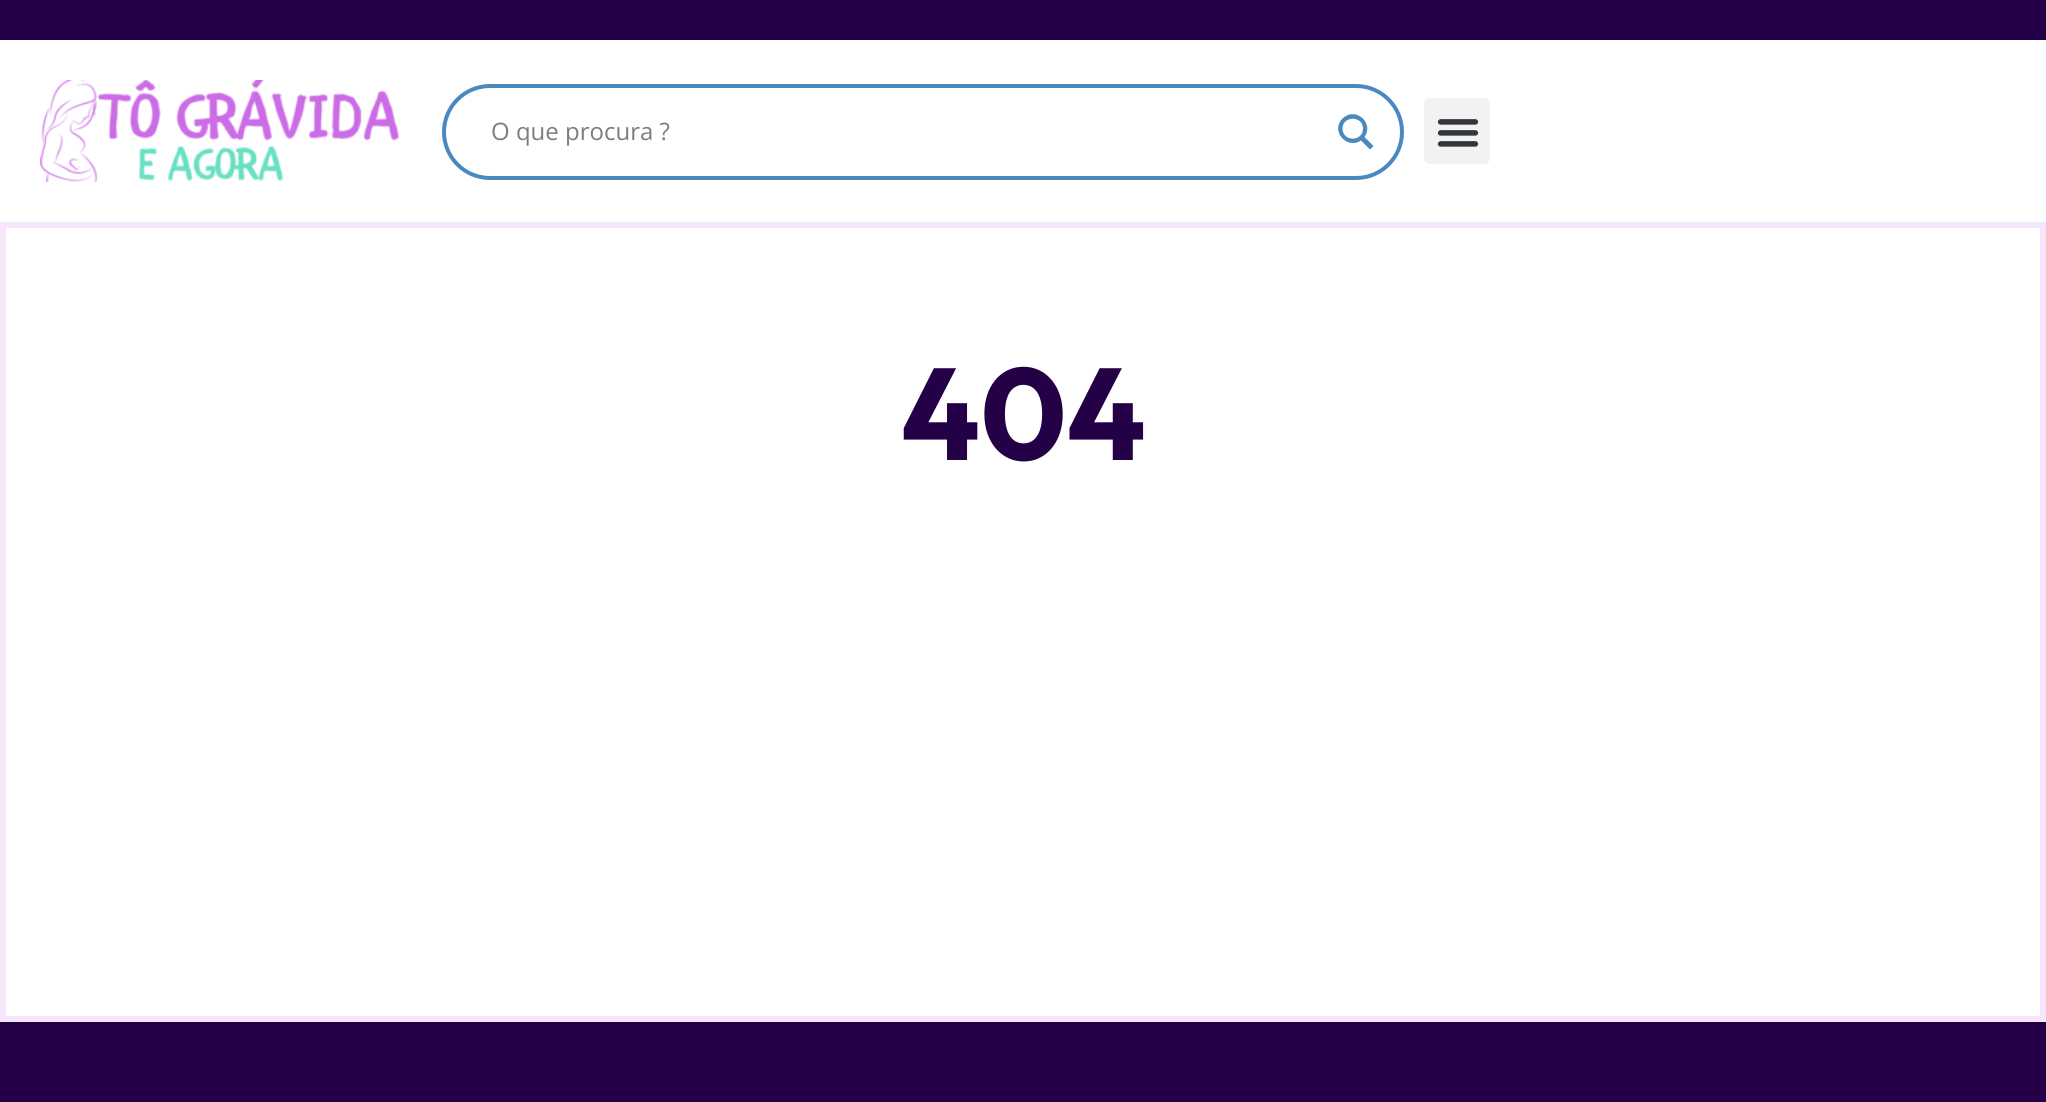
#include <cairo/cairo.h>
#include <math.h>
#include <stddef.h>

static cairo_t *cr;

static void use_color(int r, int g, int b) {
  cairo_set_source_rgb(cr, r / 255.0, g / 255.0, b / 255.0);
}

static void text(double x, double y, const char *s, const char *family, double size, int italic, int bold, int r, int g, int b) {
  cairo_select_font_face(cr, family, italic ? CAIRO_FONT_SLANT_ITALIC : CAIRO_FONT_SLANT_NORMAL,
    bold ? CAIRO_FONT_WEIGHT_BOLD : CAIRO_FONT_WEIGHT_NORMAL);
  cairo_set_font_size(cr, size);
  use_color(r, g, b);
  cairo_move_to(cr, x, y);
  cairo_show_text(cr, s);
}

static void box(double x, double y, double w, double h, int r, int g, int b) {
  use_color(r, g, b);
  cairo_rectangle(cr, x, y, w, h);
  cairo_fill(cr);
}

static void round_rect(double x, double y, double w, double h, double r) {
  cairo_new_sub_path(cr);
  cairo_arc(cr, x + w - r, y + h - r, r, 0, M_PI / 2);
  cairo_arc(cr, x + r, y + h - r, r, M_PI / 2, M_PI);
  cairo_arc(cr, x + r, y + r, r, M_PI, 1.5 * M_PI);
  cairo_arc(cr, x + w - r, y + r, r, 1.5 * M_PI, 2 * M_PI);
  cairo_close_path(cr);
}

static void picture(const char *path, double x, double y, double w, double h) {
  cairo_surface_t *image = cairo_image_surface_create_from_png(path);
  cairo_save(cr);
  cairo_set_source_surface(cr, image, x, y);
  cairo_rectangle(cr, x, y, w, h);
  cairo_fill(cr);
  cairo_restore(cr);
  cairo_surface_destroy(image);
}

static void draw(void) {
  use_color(255, 255, 255);
  cairo_paint(cr);
  box(0, 0, 2046, 40, 36, 0, 70);
  picture("img_01.png", 40, 80, 360, 102);
  round_rect(444, 86, 958, 92, 46);
  use_color(74, 137, 191);
  cairo_set_line_width(cr, 4);
  cairo_stroke(cr);
  cairo_new_path(cr);
  cairo_move_to(cr, 1373.5, 146);
  cairo_line_to(cr, 1364.5, 137);
  cairo_curve_to(cr, 1374.5, 123, 1355.5, 106, 1342.5, 118.5);
  cairo_curve_to(cr, 1330, 131, 1347, 150, 1361, 140.5);
  cairo_line_to(cr, 1370, 149.5);
  cairo_close_path(cr);
  cairo_move_to(cr, 1342.5, 128.5);
  cairo_curve_to(cr, 1342.5, 115.5, 1363, 115.5, 1363, 128.5);
  cairo_curve_to(cr, 1363, 142, 1342.5, 142, 1342.5, 128.5);
  cairo_close_path(cr);
  cairo_fill(cr);
  use_color(242, 242, 242);
  round_rect(1424, 98, 66, 66, 6);
  cairo_fill(cr);
  picture("img_02.png", 1437, 119, 42, 28);
  cairo_rectangle(cr, 3, 225, 2040, 794);
  use_color(246, 230, 251);
  cairo_set_line_width(cr, 6);
  cairo_stroke(cr);
  box(0, 1022, 2046, 80, 36, 0, 70);
  text(491, 140, "O que procura ?", "Open Sans", 24, 0, 0, 125, 125, 125);
  text(901, 460, "404", "Outfit", 130, 0, 1, 36, 0, 70);
}

int main(void) {
  cairo_surface_t *surface = cairo_image_surface_create(CAIRO_FORMAT_RGB24, 2046, 1102);
  cr = cairo_create(surface);
  cairo_font_options_t *options = cairo_font_options_create();
  cairo_font_options_set_hint_metrics(options, CAIRO_HINT_METRICS_OFF);
  cairo_font_options_set_hint_style(options, CAIRO_HINT_STYLE_NONE);
  cairo_set_font_options(cr, options);
  cairo_set_miter_limit(cr, 4);
  draw();
  cairo_surface_write_to_png(surface, "out.png");
  cairo_font_options_destroy(options);
  cairo_destroy(cr);
  cairo_surface_destroy(surface);
  return 0;
}
